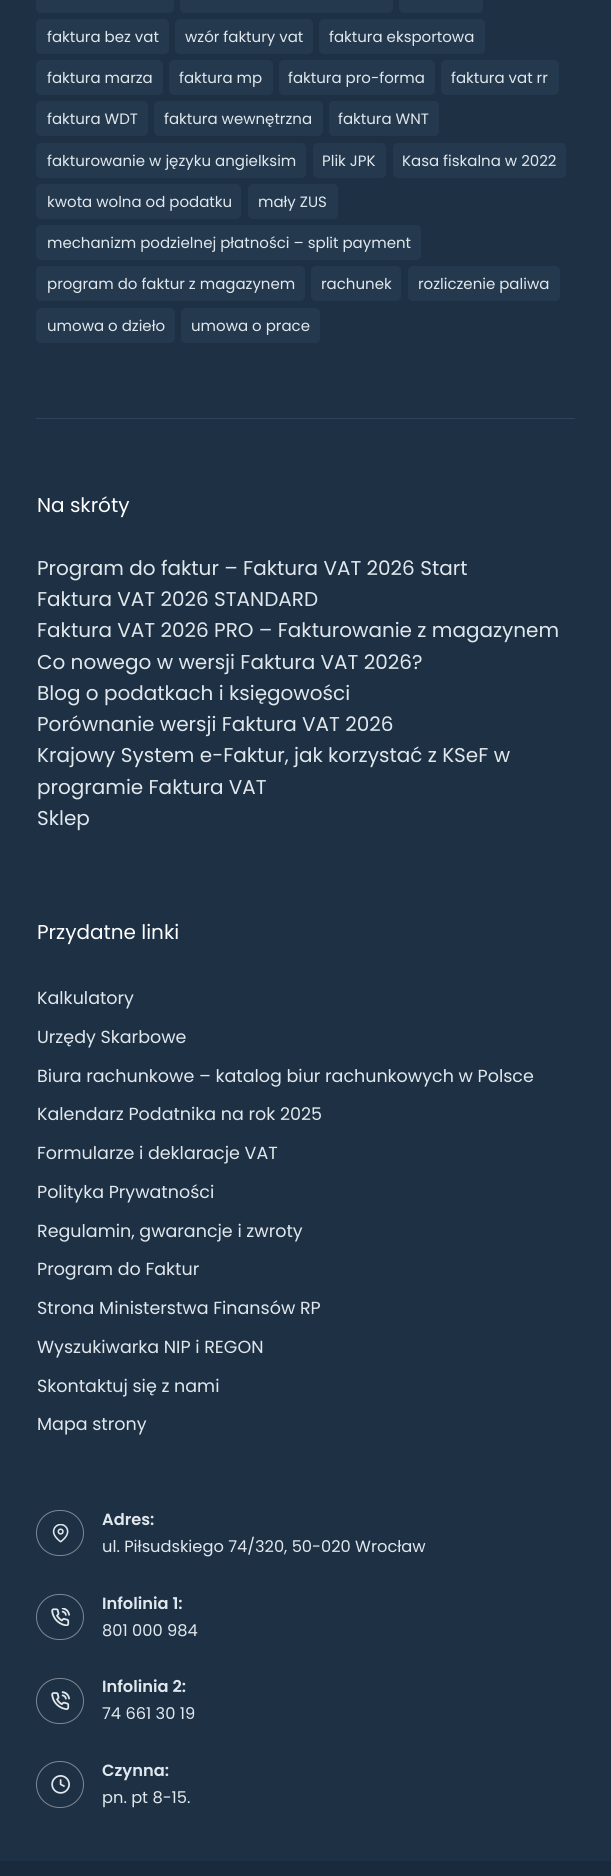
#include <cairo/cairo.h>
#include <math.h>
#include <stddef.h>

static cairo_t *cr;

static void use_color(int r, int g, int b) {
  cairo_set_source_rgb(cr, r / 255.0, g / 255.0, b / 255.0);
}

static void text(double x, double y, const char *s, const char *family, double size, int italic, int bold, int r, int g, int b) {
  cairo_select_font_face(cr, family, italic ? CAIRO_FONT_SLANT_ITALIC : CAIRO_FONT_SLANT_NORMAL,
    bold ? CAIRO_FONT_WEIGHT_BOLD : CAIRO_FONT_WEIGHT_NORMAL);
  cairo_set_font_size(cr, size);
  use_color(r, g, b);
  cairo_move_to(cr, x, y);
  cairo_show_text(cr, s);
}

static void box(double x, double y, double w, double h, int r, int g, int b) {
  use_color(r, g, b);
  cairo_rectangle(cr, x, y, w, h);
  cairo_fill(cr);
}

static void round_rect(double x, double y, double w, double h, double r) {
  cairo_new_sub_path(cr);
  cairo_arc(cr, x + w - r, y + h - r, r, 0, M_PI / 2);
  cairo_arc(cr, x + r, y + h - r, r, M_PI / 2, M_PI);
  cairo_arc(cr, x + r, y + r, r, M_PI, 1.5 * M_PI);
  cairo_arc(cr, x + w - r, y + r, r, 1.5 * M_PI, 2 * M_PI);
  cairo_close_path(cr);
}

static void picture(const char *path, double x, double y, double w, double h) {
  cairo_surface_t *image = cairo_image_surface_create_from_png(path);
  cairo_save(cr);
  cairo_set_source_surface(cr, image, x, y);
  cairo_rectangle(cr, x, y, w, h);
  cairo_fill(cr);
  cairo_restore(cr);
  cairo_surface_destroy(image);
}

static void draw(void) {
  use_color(30, 48, 68);
  cairo_paint(cr);
  use_color(37, 57, 78);
  round_rect(36, -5, 138, 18, 5);
  cairo_fill(cr);
  round_rect(180, -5, 213, 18, 5);
  cairo_fill(cr);
  round_rect(399, -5, 84, 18, 5);
  cairo_fill(cr);
  round_rect(36, 19, 133, 35, 5);
  cairo_fill(cr);
  round_rect(175, 19, 138, 35, 5);
  cairo_fill(cr);
  round_rect(319, 19, 166, 35, 5);
  cairo_fill(cr);
  round_rect(36, 60, 127, 35, 5);
  cairo_fill(cr);
  round_rect(169, 60, 104, 35, 5);
  cairo_fill(cr);
  round_rect(279, 60, 156, 35, 5);
  cairo_fill(cr);
  round_rect(441, 60, 118, 35, 5);
  cairo_fill(cr);
  round_rect(36, 101, 112, 35, 5);
  cairo_fill(cr);
  round_rect(154, 101, 169, 35, 5);
  cairo_fill(cr);
  round_rect(329, 101, 110, 35, 5);
  cairo_fill(cr);
  round_rect(36, 143, 270, 35, 5);
  cairo_fill(cr);
  round_rect(313, 143, 73, 35, 5);
  cairo_fill(cr);
  round_rect(393, 143, 173, 35, 5);
  cairo_fill(cr);
  round_rect(36, 184, 205, 35, 5);
  cairo_fill(cr);
  round_rect(248, 184, 90, 35, 5);
  cairo_fill(cr);
  round_rect(36, 225, 385, 35, 5);
  cairo_fill(cr);
  round_rect(36, 266, 269, 35, 5);
  cairo_fill(cr);
  round_rect(311, 266, 90, 35, 5);
  cairo_fill(cr);
  round_rect(408, 266, 152, 35, 5);
  cairo_fill(cr);
  round_rect(36, 308, 139, 35, 5);
  cairo_fill(cr);
  round_rect(181, 308, 139, 35, 5);
  cairo_fill(cr);
  box(36, 418, 539, 1, 46, 68, 91);
  round_rect(36.5, 1510.5, 47, 45, 22.5);
  use_color(124, 135, 148);
  cairo_set_line_width(cr, 1);
  cairo_stroke(cr);
  picture("img_01.png", 52, 1524, 17, 19);
  round_rect(36.5, 1594.5, 47, 45, 22.5);
  cairo_stroke(cr);
  picture("img_02.png", 51, 1608, 19, 18);
  round_rect(36.5, 1678.5, 47, 45, 22.5);
  cairo_stroke(cr);
  picture("img_03.png", 51, 1691, 19, 19);
  round_rect(36.5, 1761.5, 47, 46, 23);
  cairo_stroke(cr);
  picture("img_04.png", 51, 1775, 19, 19);
  box(0, 1861, 611, 15, 25, 42, 61);
  text(47, 42, "faktura bez vat", "Poppins", 15, 0, 0, 225, 232, 237);
  text(185, 42, "wzór faktury vat", "Poppins", 15, 0, 0, 225, 232, 237);
  text(329, 42, "faktura eksportowa", "Poppins", 15, 0, 0, 225, 232, 237);
  text(47, 83, "faktura marza", "Poppins", 15, 0, 0, 225, 232, 237);
  text(179, 83, "faktura mp", "Poppins", 15, 0, 0, 225, 232, 237);
  text(288, 83, "faktura pro-forma", "Poppins", 15, 0, 0, 225, 232, 237);
  text(451, 83, "faktura vat rr", "Poppins", 15, 0, 0, 225, 232, 237);
  text(47, 124, "faktura WDT", "Poppins", 15, 0, 0, 225, 232, 237);
  text(164, 124, "faktura wewnętrzna", "Poppins", 15, 0, 0, 225, 232, 237);
  text(338, 124, "faktura WNT", "Poppins", 15, 0, 0, 225, 232, 237);
  text(47, 166, "fakturowanie w języku angielksim", "Poppins", 15, 0, 0, 225, 232, 237);
  text(322, 166, "Plik JPK", "Poppins", 15, 0, 0, 225, 232, 237);
  text(402, 166, "Kasa fiskalna w 2022", "Poppins", 15, 0, 0, 225, 232, 237);
  text(47, 207, "kwota wolna od podatku", "Poppins", 15, 0, 0, 225, 232, 237);
  text(258, 207, "mały ZUS", "Poppins", 15, 0, 0, 225, 232, 237);
  text(47, 248, "mechanizm podzielnej płatności – split payment", "Poppins", 15, 0, 0, 225, 232, 237);
  text(47, 289, "program do faktur z magazynem", "Poppins", 15, 0, 0, 225, 232, 237);
  text(321, 289, "rachunek", "Poppins", 15, 0, 0, 225, 232, 237);
  text(418, 289, "rozliczenie paliwa", "Poppins", 15, 0, 0, 225, 232, 237);
  text(47, 331, "umowa o dzieło", "Poppins", 15, 0, 0, 225, 232, 237);
  text(191, 331, "umowa o prace", "Poppins", 15, 0, 0, 225, 232, 237);
  text(37, 512, "Na skróty", "Poppins", 20, 0, 0, 255, 255, 255);
  text(37, 575, "Program do faktur – Faktura VAT 2026 Start", "Poppins", 20, 0, 0, 225, 232, 237);
  text(37, 606, "Faktura VAT 2026 STANDARD", "Poppins", 20, 0, 0, 225, 232, 237);
  text(37, 637, "Faktura VAT 2026 PRO – Fakturowanie z magazynem", "Poppins", 20, 0, 0, 225, 232, 237);
  text(37, 669, "Co nowego w wersji Faktura VAT 2026?", "Poppins", 20, 0, 0, 225, 232, 237);
  text(37, 700, "Blog o podatkach i księgowości", "Poppins", 20, 0, 0, 225, 232, 237);
  text(37, 731, "Porównanie wersji Faktura VAT 2026", "Poppins", 20, 0, 0, 225, 232, 237);
  text(37, 762, "Krajowy System e-Faktur, jak korzystać z KSeF w", "Poppins", 20, 0, 0, 225, 232, 237);
  text(37, 794, "programie Faktura VAT", "Poppins", 20, 0, 0, 225, 232, 237);
  text(37, 825, "Sklep", "Poppins", 20, 0, 0, 225, 232, 237);
  text(37, 939, "Przydatne linki", "Poppins", 20, 0, 0, 255, 255, 255);
  text(37, 1004, "Kalkulatory", "Poppins", 17.5, 0, 0, 225, 232, 237);
  text(37, 1043, "Urzędy Skarbowe", "Poppins", 17.5, 0, 0, 225, 232, 237);
  text(37, 1082, "Biura rachunkowe – katalog biur rachunkowych w Polsce", "Poppins", 17.5, 0, 0, 225, 232, 237);
  text(37, 1120, "Kalendarz Podatnika na rok 2025", "Poppins", 17.5, 0, 0, 225, 232, 237);
  text(37, 1159, "Formularze i deklaracje VAT", "Poppins", 17.5, 0, 0, 225, 232, 237);
  text(37, 1198, "Polityka Prywatności", "Poppins", 17.5, 0, 0, 225, 232, 237);
  text(37, 1237, "Regulamin, gwarancje i zwroty", "Poppins", 17.5, 0, 0, 225, 232, 237);
  text(37, 1275, "Program do Faktur", "Poppins", 17.5, 0, 0, 225, 232, 237);
  text(37, 1314, "Strona Ministerstwa Finansów RP", "Poppins", 17.5, 0, 0, 225, 232, 237);
  text(37, 1353, "Wyszukiwarka NIP i REGON", "Poppins", 17.5, 0, 0, 225, 232, 237);
  text(37, 1392, "Skontaktuj się z nami", "Poppins", 17.5, 0, 0, 225, 232, 237);
  text(37, 1430, "Mapa strony", "Poppins", 17.5, 0, 0, 225, 232, 237);
  text(102, 1525, "Adres:", "Poppins SemiBold", 16.25, 0, 0, 225, 232, 237);
  text(102, 1552, "ul. Piłsudskiego 74/320, 50-020 Wrocław", "Poppins", 16.25, 0, 0, 225, 232, 237);
  text(102, 1609, "Infolinia 1:", "Poppins SemiBold", 16.25, 0, 0, 225, 232, 237);
  text(102, 1636, "801 000 984", "Poppins", 16.25, 0, 0, 225, 232, 237);
  text(102, 1692, "Infolinia 2:", "Poppins SemiBold", 16.25, 0, 0, 225, 232, 237);
  text(102, 1719, "74 661 30 19", "Poppins", 16.25, 0, 0, 225, 232, 237);
  text(102, 1776, "Czynna:", "Poppins SemiBold", 16.25, 0, 0, 225, 232, 237);
  text(102, 1803, "pn. pt 8-15.", "Poppins", 16.25, 0, 0, 225, 232, 237);
}

int main(void) {
  cairo_surface_t *surface = cairo_image_surface_create(CAIRO_FORMAT_RGB24, 611, 1876);
  cr = cairo_create(surface);
  cairo_font_options_t *options = cairo_font_options_create();
  cairo_font_options_set_hint_metrics(options, CAIRO_HINT_METRICS_OFF);
  cairo_font_options_set_hint_style(options, CAIRO_HINT_STYLE_NONE);
  cairo_set_font_options(cr, options);
  cairo_set_miter_limit(cr, 4);
  draw();
  cairo_surface_write_to_png(surface, "out.png");
  cairo_font_options_destroy(options);
  cairo_destroy(cr);
  cairo_surface_destroy(surface);
  return 0;
}
